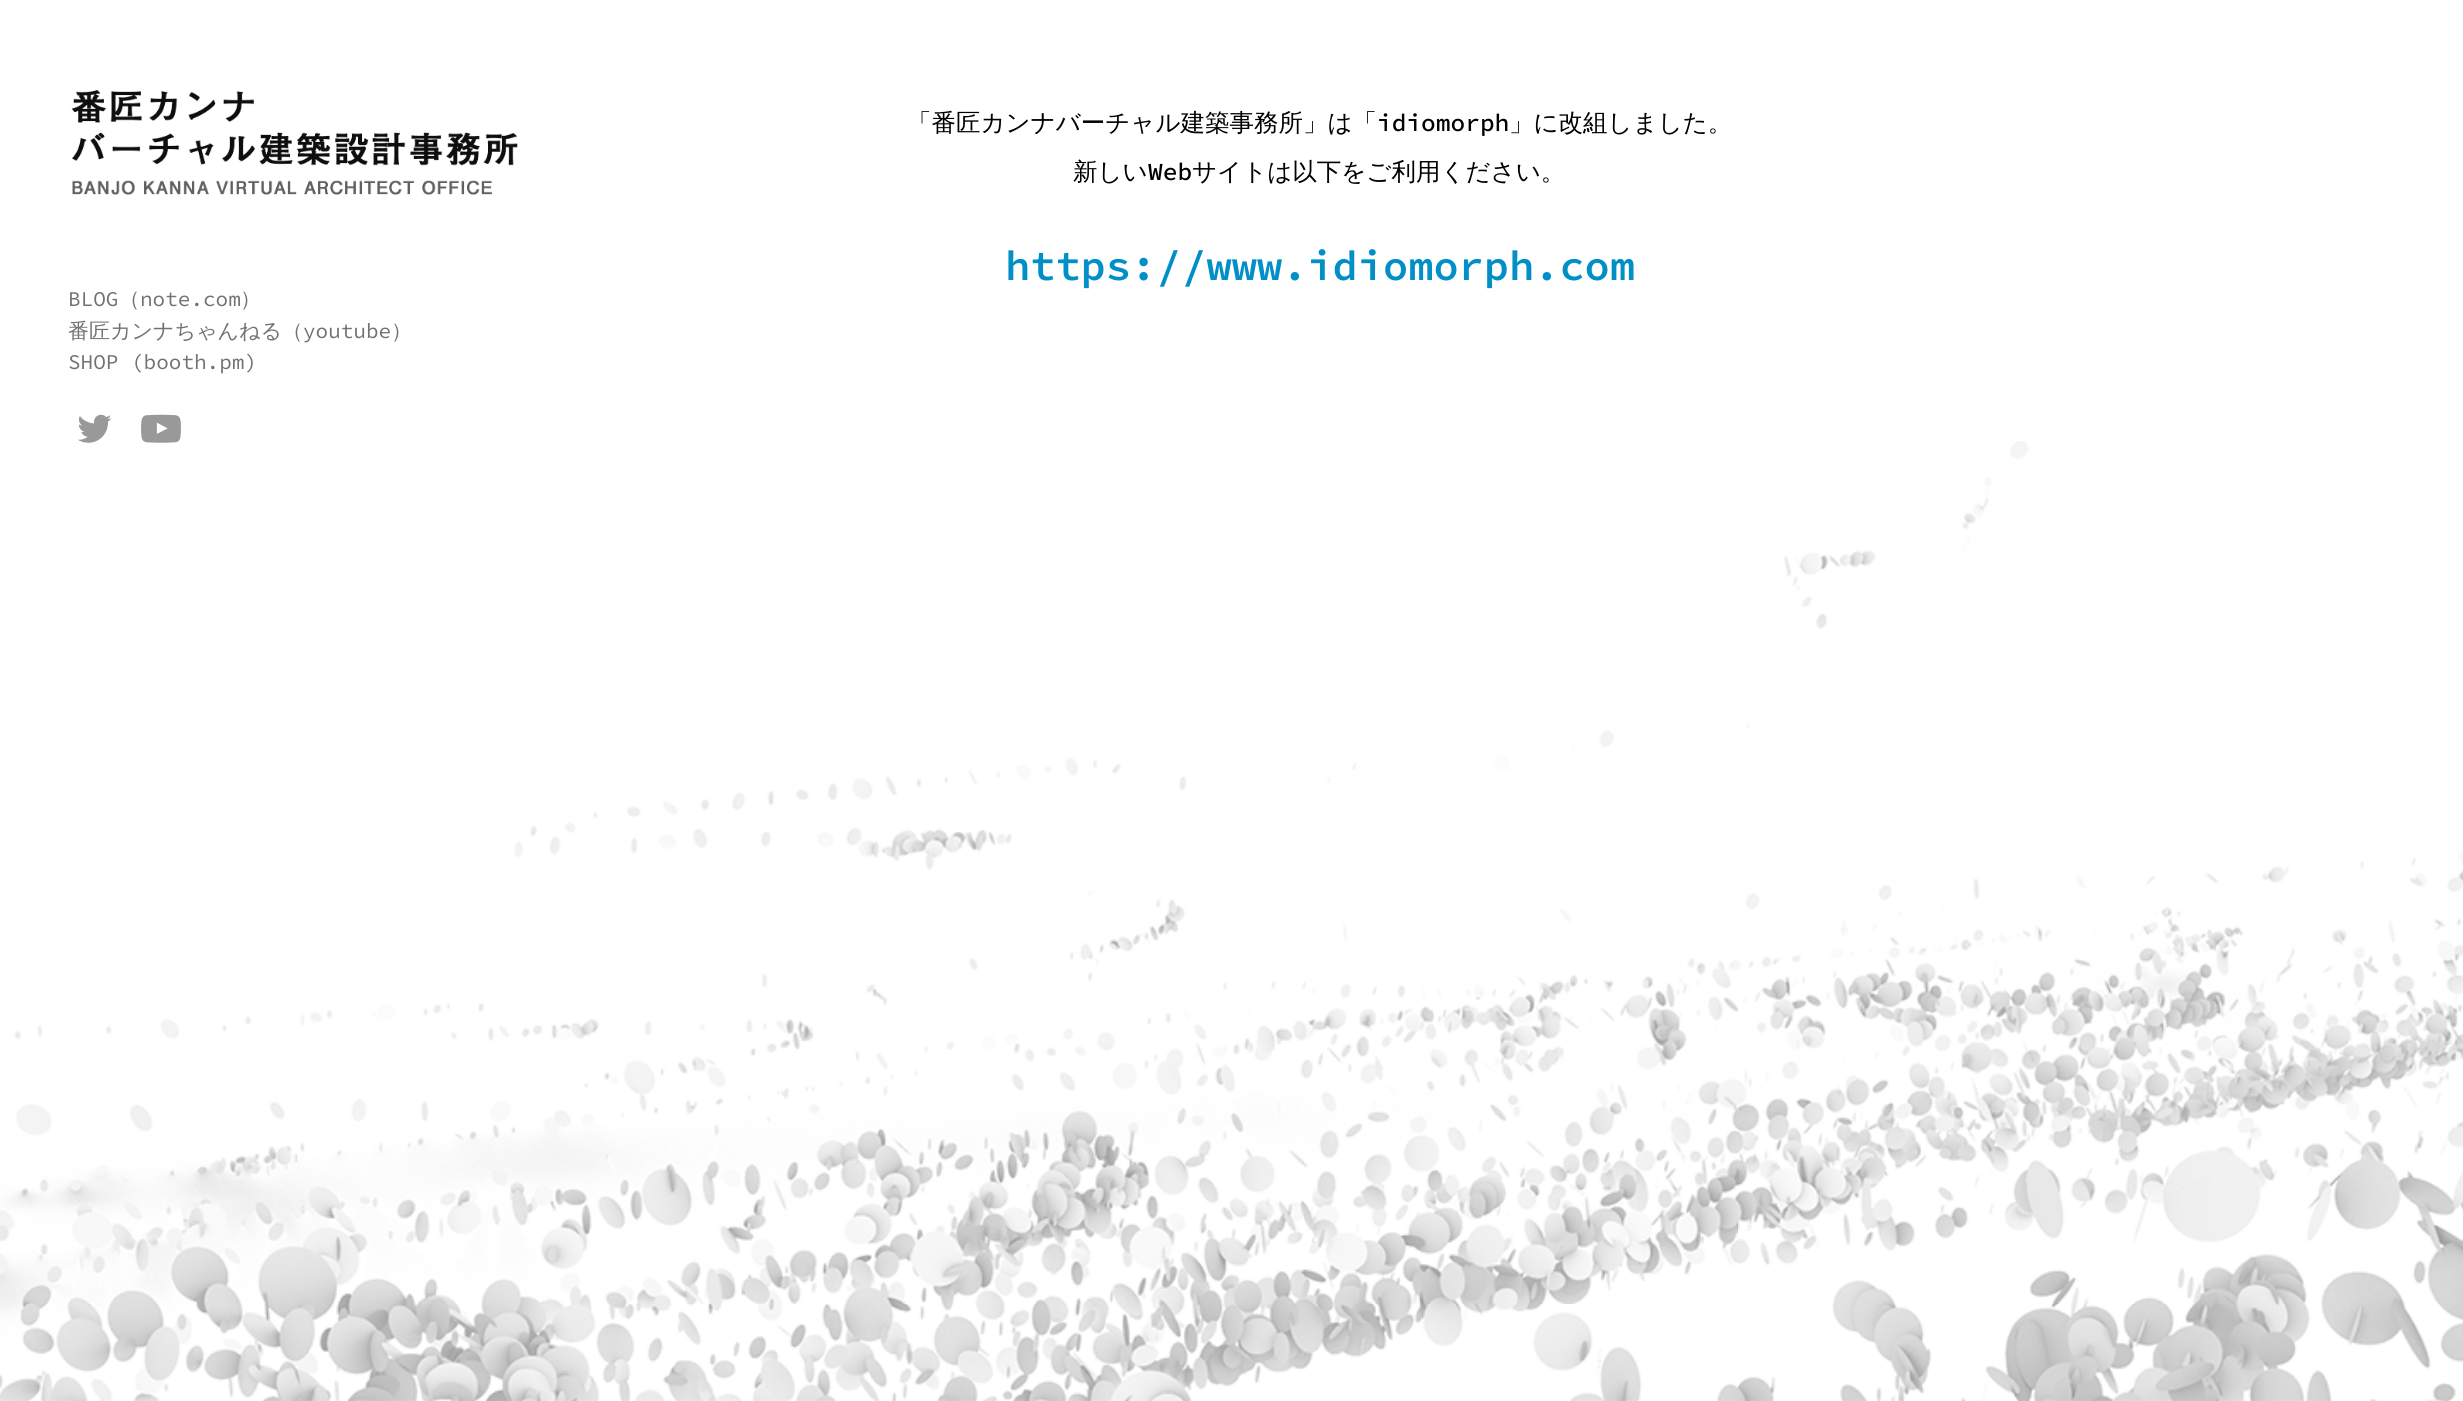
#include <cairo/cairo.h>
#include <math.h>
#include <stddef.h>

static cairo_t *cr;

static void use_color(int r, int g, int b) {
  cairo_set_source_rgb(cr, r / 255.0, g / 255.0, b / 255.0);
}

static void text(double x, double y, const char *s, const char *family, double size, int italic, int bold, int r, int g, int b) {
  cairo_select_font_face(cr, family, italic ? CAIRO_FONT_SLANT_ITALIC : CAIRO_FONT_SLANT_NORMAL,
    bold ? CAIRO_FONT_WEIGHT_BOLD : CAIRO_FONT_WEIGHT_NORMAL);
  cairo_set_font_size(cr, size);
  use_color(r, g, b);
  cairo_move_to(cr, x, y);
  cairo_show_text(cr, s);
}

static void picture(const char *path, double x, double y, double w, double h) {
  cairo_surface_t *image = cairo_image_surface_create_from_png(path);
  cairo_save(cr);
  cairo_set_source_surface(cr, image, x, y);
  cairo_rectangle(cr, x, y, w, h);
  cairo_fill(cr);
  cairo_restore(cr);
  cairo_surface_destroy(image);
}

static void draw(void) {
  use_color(255, 255, 255);
  cairo_paint(cr);
  picture("img_01.png", 0, 441, 2463, 960);
  picture("img_02.png", 71, 90, 447, 105);
  picture("img_03.png", 77, 414, 35, 29);
  picture("img_04.png", 141, 414, 40, 29);
  text(907, 131, "「番匠カンナバーチャル建築事務所」は「", "WenQuanYi Zen Hei Medium", 24.5, 0, 0, 0, 0, 0);
  text(1377, 131, "idiomorph", "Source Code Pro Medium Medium", 24.5, 0, 0, 0, 0, 0);
  text(1509, 131, "」に改組しました。", "WenQuanYi Zen Hei Medium", 24.5, 0, 0, 0, 0, 0);
  text(1073, 180, "新しい", "WenQuanYi Zen Hei Medium", 24.5, 0, 0, 0, 0, 0);
  text(1148, 180, "Web", "Source Code Pro Medium Medium", 24.5, 0, 0, 0, 0, 0);
  text(1192, 180, "サイトは以下をご利用ください。", "WenQuanYi Zen Hei Medium", 24.5, 0, 0, 0, 0, 0);
  text(1005, 280, "https://www.idiomorph.com", "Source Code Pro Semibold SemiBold", 42, 0, 0, 0, 143, 198);
  text(68, 306, "BLOG", "Source Code Pro", 21, 0, 0, 114, 114, 114);
  text(119, 306, "（", "WenQuanYi Zen Hei Medium", 21, 0, 0, 114, 114, 114);
  text(140, 306, "note.com", "Source Code Pro", 21, 0, 0, 114, 114, 114);
  text(240, 306, "）", "WenQuanYi Zen Hei Medium", 21, 0, 0, 114, 114, 114);
  text(68, 338, "番匠カンナちゃんねる（", "WenQuanYi Zen Hei Medium", 21, 0, 0, 114, 114, 114);
  text(303, 338, "youtube", "Source Code Pro", 21, 0, 0, 114, 114, 114);
  text(391, 338, "）", "WenQuanYi Zen Hei Medium", 21, 0, 0, 114, 114, 114);
  text(68, 369, "SHOP (booth.pm)", "Source Code Pro", 21, 0, 0, 114, 114, 114);
}

int main(void) {
  cairo_surface_t *surface = cairo_image_surface_create(CAIRO_FORMAT_RGB24, 2463, 1401);
  cr = cairo_create(surface);
  cairo_font_options_t *options = cairo_font_options_create();
  cairo_font_options_set_hint_metrics(options, CAIRO_HINT_METRICS_OFF);
  cairo_font_options_set_hint_style(options, CAIRO_HINT_STYLE_NONE);
  cairo_set_font_options(cr, options);
  cairo_set_miter_limit(cr, 4);
  draw();
  cairo_surface_write_to_png(surface, "out.png");
  cairo_font_options_destroy(options);
  cairo_destroy(cr);
  cairo_surface_destroy(surface);
  return 0;
}
